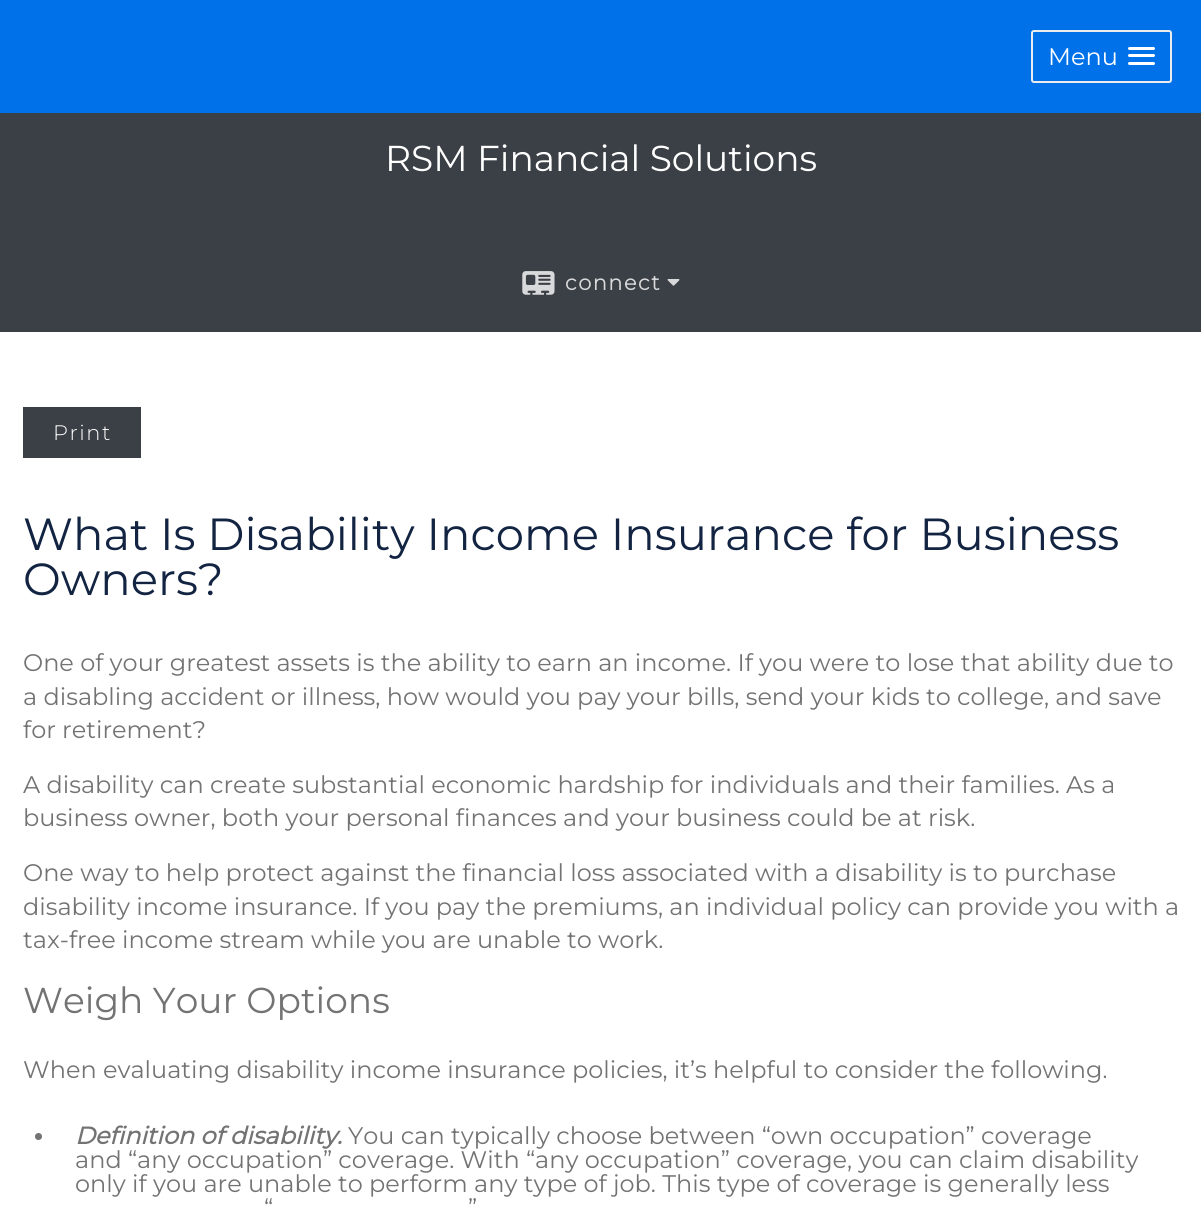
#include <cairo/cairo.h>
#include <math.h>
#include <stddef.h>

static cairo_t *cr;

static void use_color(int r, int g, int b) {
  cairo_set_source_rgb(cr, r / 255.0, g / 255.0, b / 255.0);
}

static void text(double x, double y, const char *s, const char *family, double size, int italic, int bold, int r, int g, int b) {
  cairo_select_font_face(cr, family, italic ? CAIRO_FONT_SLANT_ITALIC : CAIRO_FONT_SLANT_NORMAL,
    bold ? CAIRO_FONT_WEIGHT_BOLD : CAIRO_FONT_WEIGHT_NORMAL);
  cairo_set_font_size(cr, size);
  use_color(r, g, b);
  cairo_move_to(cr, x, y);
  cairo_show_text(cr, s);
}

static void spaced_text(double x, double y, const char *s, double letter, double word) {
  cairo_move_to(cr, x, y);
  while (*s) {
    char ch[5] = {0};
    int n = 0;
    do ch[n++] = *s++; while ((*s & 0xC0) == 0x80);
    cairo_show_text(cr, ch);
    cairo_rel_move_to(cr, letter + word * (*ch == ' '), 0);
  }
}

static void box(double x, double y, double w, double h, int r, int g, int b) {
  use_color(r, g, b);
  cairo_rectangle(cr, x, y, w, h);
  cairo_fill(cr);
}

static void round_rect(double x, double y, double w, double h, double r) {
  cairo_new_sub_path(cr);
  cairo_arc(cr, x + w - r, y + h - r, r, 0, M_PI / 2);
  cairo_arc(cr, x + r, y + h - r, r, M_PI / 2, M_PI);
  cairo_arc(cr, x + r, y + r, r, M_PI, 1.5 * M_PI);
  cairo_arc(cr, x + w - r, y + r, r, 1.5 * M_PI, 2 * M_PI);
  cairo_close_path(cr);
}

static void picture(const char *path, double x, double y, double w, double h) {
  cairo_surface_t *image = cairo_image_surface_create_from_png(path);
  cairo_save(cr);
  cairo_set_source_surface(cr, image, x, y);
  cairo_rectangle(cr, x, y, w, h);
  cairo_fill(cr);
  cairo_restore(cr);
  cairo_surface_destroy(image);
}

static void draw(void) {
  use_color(1, 113, 233);
  cairo_paint(cr);
  round_rect(1032, 31, 139, 51, 2);
  use_color(236, 236, 236);
  cairo_stroke(cr);
  use_color(255, 255, 255);
  round_rect(1128, 47, 27, 3, 1.5);
  cairo_fill(cr);
  round_rect(1128, 54, 27, 3, 1.5);
  cairo_fill(cr);
  round_rect(1128, 62, 27, 3, 1.5);
  cairo_fill(cr);
  box(0, 113, 1201, 219, 59, 64, 70);
  picture("img_01.png", 522, 271, 33, 24);
  picture("img_02.png", 667, 279, 13, 7);
  box(0, 332, 1201, 873, 255, 255, 255);
  box(23, 407, 118, 51, 59, 64, 70);
  use_color(115, 115, 115);
  cairo_arc(cr, 38.5, 1136.5, 3.5, 0, 2 * M_PI);
  cairo_fill(cr);
  text(1048, 65, "Menu", "Montserrat", 24, 0, 0, 255, 255, 255);
  text(385, 171, "RSM Financial Solutions", "Montserrat", 36, 0, 0, 255, 255, 255);
  cairo_select_font_face(cr, "Montserrat", CAIRO_FONT_SLANT_NORMAL, CAIRO_FONT_WEIGHT_BOLD);
  cairo_set_font_size(cr, 21);
  use_color(216, 217, 218);
  spaced_text(565, 290, "connect", 1.5, 0);
  cairo_select_font_face(cr, "Montserrat Light", CAIRO_FONT_SLANT_NORMAL, CAIRO_FONT_WEIGHT_NORMAL);
  use_color(255, 255, 255);
  spaced_text(53, 440, "Print", 1.5, 0);
  text(23, 550, "What Is Disability Income Insurance for Business", "Montserrat", 45, 0, 0, 18, 36, 66);
  text(23, 595, "Owners?", "Montserrat", 45, 0, 0, 18, 36, 66);
  text(23, 671, "One of your greatest assets is the ability to earn an income. If you were to lose that ability due to", "Montserrat", 24, 0, 0, 115, 115, 115);
  text(23, 705, "a disabling accident or illness, how would you pay your bills, send your kids to college, and save", "Montserrat", 24, 0, 0, 115, 115, 115);
  text(23, 738, "for retirement?", "Montserrat", 24, 0, 0, 115, 115, 115);
  text(23, 793, "A disability can create substantial economic hardship for individuals and their families. As a", "Montserrat", 24, 0, 0, 115, 115, 115);
  text(23, 826, "business owner, both your personal finances and your business could be at risk.", "Montserrat", 24, 0, 0, 115, 115, 115);
  text(23, 881, "One way to help protect against the financial loss associated with a disability is to purchase", "Montserrat", 24, 0, 0, 115, 115, 115);
  text(23, 915, "disability income insurance. If you pay the premiums, an individual policy can provide you with a", "Montserrat", 24, 0, 0, 115, 115, 115);
  text(23, 948, "tax-free income stream while you are unable to work.", "Montserrat", 24, 0, 0, 115, 115, 115);
  text(23, 1013, "Weigh Your Options", "Montserrat", 36, 0, 0, 115, 115, 115);
  text(23, 1078, "When evaluating disability income insurance policies, it’s helpful to consider the following.", "Montserrat", 24, 0, 0, 115, 115, 115);
  text(75, 1144, "Definition of disability.", "Montserrat", 24, 1, 1, 115, 115, 115);
  text(348, 1144, "You can typically choose between “own occupation” coverage", "Montserrat", 24, 0, 0, 115, 115, 115);
  text(75, 1168, "and “any occupation” coverage. With “any occupation” coverage, you can claim disability", "Montserrat", 24, 0, 0, 115, 115, 115);
  text(75, 1192, "only if you are unable to perform any type of job. This type of coverage is generally less", "Montserrat", 24, 0, 0, 115, 115, 115);
  text(264, 1216, "“", "Montserrat", 24, 0, 0, 115, 115, 115);
  text(468, 1216, "”", "Montserrat", 24, 0, 0, 115, 115, 115);
}

int main(void) {
  cairo_surface_t *surface = cairo_image_surface_create(CAIRO_FORMAT_RGB24, 1201, 1205);
  cr = cairo_create(surface);
  cairo_font_options_t *options = cairo_font_options_create();
  cairo_font_options_set_hint_metrics(options, CAIRO_HINT_METRICS_OFF);
  cairo_font_options_set_hint_style(options, CAIRO_HINT_STYLE_NONE);
  cairo_set_font_options(cr, options);
  cairo_set_miter_limit(cr, 4);
  draw();
  cairo_surface_write_to_png(surface, "out.png");
  cairo_font_options_destroy(options);
  cairo_destroy(cr);
  cairo_surface_destroy(surface);
  return 0;
}
